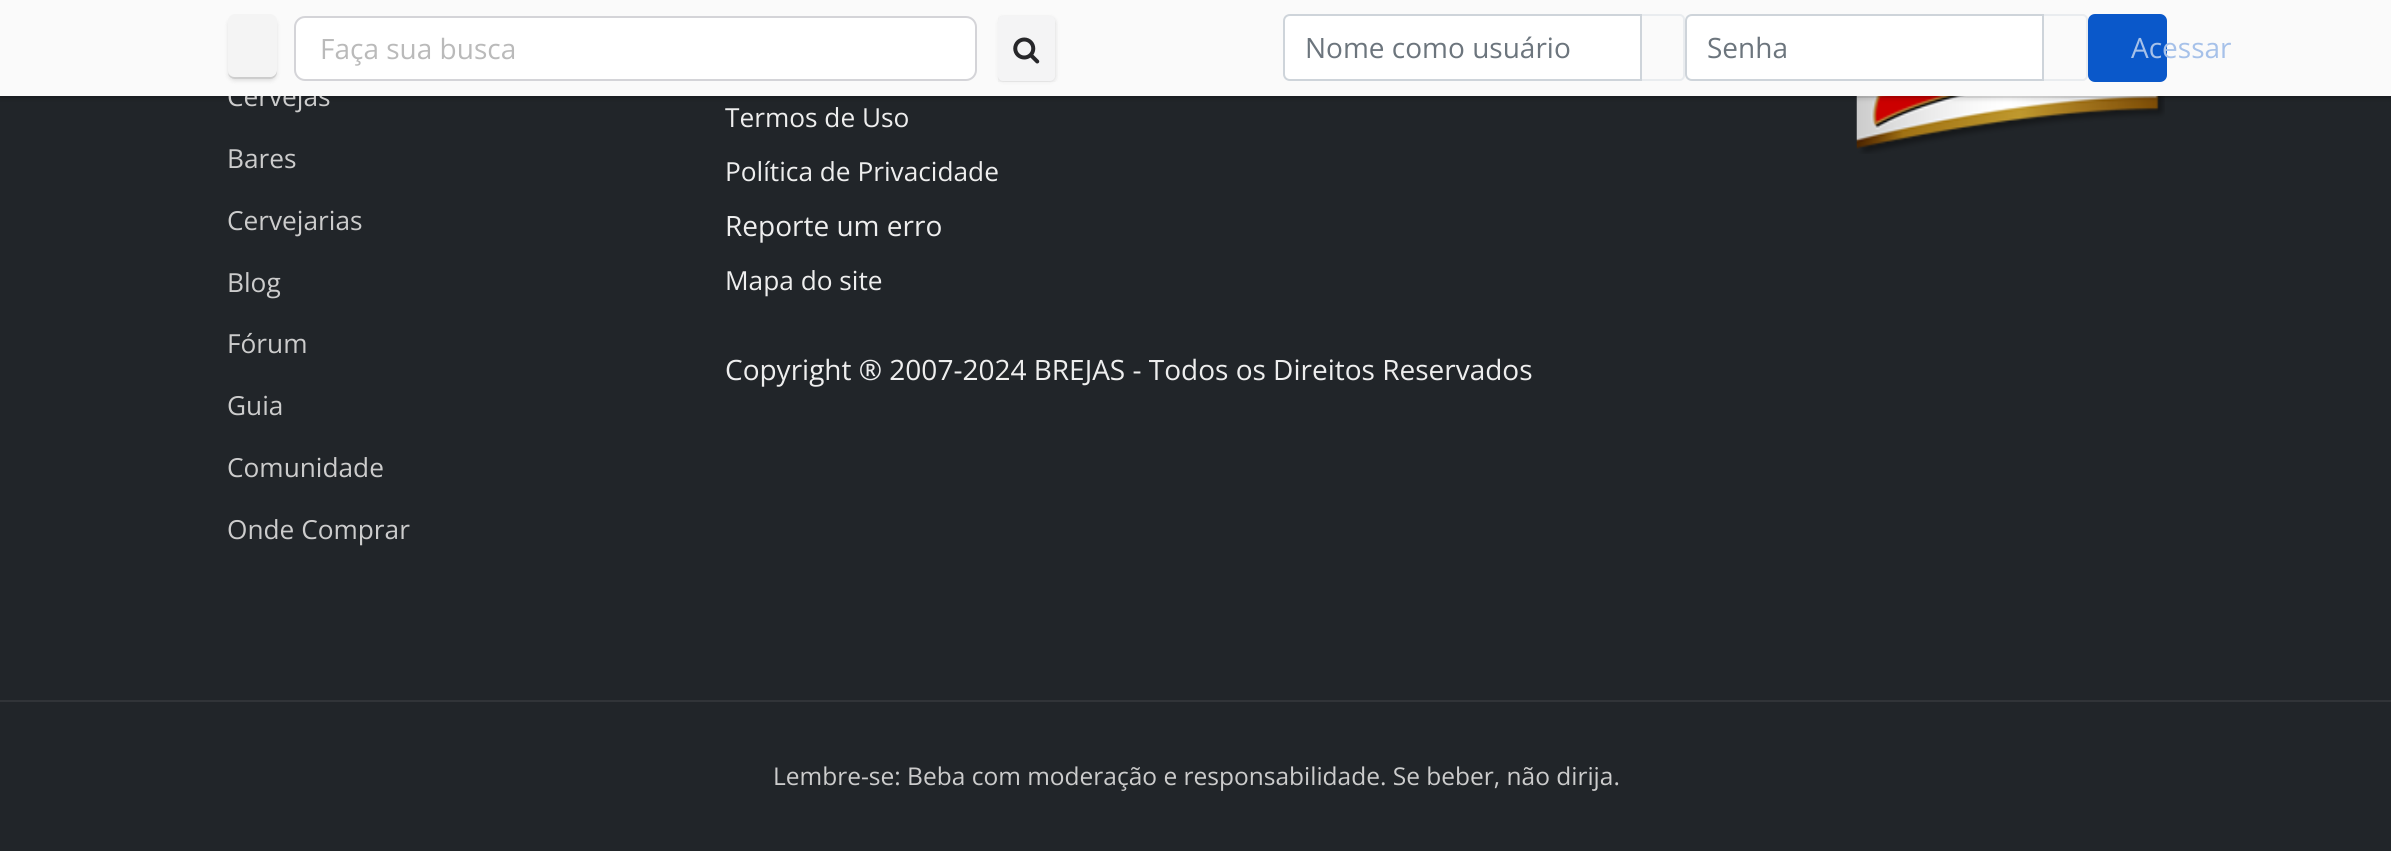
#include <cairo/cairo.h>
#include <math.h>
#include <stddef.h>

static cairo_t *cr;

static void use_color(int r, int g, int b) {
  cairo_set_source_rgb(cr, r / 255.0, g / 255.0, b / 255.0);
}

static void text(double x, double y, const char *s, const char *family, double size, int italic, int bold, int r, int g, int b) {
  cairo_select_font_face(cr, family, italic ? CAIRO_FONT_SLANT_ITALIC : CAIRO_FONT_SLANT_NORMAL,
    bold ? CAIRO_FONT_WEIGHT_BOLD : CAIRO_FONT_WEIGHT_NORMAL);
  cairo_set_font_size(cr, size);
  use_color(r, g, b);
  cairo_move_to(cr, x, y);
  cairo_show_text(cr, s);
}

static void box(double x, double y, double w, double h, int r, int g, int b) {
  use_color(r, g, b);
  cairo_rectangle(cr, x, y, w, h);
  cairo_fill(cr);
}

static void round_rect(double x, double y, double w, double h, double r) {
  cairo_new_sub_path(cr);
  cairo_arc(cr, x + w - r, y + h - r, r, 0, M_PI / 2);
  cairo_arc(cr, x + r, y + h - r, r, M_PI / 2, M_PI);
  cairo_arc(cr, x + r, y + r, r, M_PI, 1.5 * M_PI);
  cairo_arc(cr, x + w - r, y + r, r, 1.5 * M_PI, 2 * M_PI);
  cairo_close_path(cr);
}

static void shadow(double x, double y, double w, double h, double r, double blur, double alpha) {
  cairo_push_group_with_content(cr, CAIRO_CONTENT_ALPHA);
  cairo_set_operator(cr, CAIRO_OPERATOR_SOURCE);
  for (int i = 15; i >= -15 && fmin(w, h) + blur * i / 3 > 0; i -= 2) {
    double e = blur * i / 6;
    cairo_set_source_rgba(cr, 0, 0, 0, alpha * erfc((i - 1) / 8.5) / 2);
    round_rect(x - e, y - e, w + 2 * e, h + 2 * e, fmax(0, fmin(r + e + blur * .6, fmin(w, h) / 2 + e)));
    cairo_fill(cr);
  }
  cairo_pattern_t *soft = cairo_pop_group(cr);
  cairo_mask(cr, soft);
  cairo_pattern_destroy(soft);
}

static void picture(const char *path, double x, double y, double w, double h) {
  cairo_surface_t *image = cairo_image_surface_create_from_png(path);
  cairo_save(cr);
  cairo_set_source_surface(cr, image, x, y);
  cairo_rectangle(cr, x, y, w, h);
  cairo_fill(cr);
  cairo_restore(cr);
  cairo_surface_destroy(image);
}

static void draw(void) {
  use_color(33, 37, 41);
  cairo_paint(cr);
  picture("img_02.png", 1856, 96, 309, 58);
  cairo_set_source_rgba(cr, 0, 0, 0, 0.1);
  cairo_rectangle(cr, 0, 96, 2391, 2);
  cairo_fill(cr);
  use_color(0, 0, 0);
  shadow(0, 4, 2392, 96, 0, 2, 0.1);
  box(0, 700, 2391, 2, 49, 52, 56);
  text(227, 106, "Cervejas", "Open Sans", 26.25, 0, 0, 204, 204, 204);
  box(0, 0, 2391, 96, 250, 250, 250);
  use_color(225, 225, 225);
  cairo_new_path(cr);
  cairo_move_to(cr, 228, 73);
  cairo_curve_to(cr, 228, 76, 231, 79, 235, 79);
  cairo_line_to(cr, 270, 79);
  cairo_curve_to(cr, 274, 79, 277, 76, 277, 72);
  cairo_line_to(cr, 277, 23);
  cairo_line_to(cr, 276, 20);
  cairo_line_to(cr, 276, 62);
  cairo_curve_to(cr, 276, 67, 278, 75, 271, 77);
  cairo_line_to(cr, 240, 77);
  cairo_curve_to(cr, 236, 77, 230, 78, 228, 73);
  cairo_close_path(cr);
  cairo_fill(cr);
  use_color(0, 0, 0);
  shadow(228, 18, 49, 63, 7, 2, 0.1);
  use_color(244, 244, 244);
  round_rect(228, 14, 49, 63, 7);
  cairo_fill(cr);
  cairo_new_path(cr);
  cairo_move_to(cr, 2043, 15);
  cairo_line_to(cr, 2083, 15);
  cairo_curve_to(cr, 2085, 15, 2087, 17, 2087, 19);
  cairo_line_to(cr, 2087, 76);
  cairo_curve_to(cr, 2087, 78, 2085, 80, 2083, 80);
  cairo_line_to(cr, 2043, 80);
  cairo_close_path(cr);
  use_color(233, 236, 239);
  cairo_stroke(cr);
  use_color(255, 255, 255);
  cairo_new_path(cr);
  cairo_move_to(cr, 1692, 15);
  cairo_line_to(cr, 2043, 15);
  cairo_line_to(cr, 2043, 80);
  cairo_line_to(cr, 1692, 80);
  cairo_curve_to(cr, 1688.5, 80, 1686, 77.5, 1686, 74);
  cairo_line_to(cr, 1686, 21);
  cairo_curve_to(cr, 1686, 17.5, 1688.5, 15, 1692, 15);
  cairo_close_path(cr);
  cairo_fill_preserve(cr);
  use_color(206, 212, 218);
  cairo_stroke(cr);
  text(1707, 58, "Senha", "Open Sans", 28, 0, 0, 108, 117, 125);
  cairo_new_path(cr);
  cairo_move_to(cr, 1641, 15);
  cairo_line_to(cr, 1680, 15);
  cairo_curve_to(cr, 1682, 15, 1684, 17, 1684, 19);
  cairo_line_to(cr, 1684, 76);
  cairo_curve_to(cr, 1684, 78, 1682, 80, 1680, 80);
  cairo_line_to(cr, 1641, 80);
  cairo_close_path(cr);
  use_color(233, 236, 239);
  cairo_stroke(cr);
  use_color(255, 255, 255);
  cairo_new_path(cr);
  cairo_move_to(cr, 1290, 15);
  cairo_line_to(cr, 1641, 15);
  cairo_line_to(cr, 1641, 80);
  cairo_line_to(cr, 1290, 80);
  cairo_curve_to(cr, 1286.5, 80, 1284, 77.5, 1284, 74);
  cairo_line_to(cr, 1284, 21);
  cairo_curve_to(cr, 1284, 17.5, 1286.5, 15, 1290, 15);
  cairo_close_path(cr);
  cairo_fill_preserve(cr);
  use_color(206, 212, 218);
  cairo_stroke(cr);
  text(1305, 58, "Nome como usuário", "Open Sans", 28, 0, 0, 108, 117, 125);
  cairo_save(cr);
  cairo_rectangle(cr, 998, 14, 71, 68);
  cairo_clip(cr);
  use_color(0, 0, 0);
  shadow(998, 18, 57, 64, 5, 2.5, 0.1);
  cairo_restore(cr);
  use_color(0, 0, 0);
  shadow(998, 18, 57, 64, 5, 2, 0.06);
  use_color(244, 244, 245);
  round_rect(999, 17, 55, 63, 4);
  cairo_fill_preserve(cr);
  cairo_stroke(cr);
  picture("img_01.png", 1013, 37, 27, 27);
  use_color(255, 255, 255);
  round_rect(295, 17, 681, 63, 10);
  cairo_fill_preserve(cr);
  use_color(212, 212, 216);
  cairo_stroke(cr);
  text(320, 59, "Faça sua busca", "Open Sans", 28, 0, 0, 186, 186, 186);
  use_color(10, 88, 202);
  round_rect(2089, 15, 77, 66, 6);
  cairo_fill_preserve(cr);
  cairo_stroke(cr);
  text(2131, 58, "Acessar", "Open Sans", 28, 0, 0, 166, 193, 233);
  text(227, 168, "Bares", "Open Sans", 26.25, 0, 0, 204, 204, 204);
  text(227, 230, "Cervejarias", "Open Sans", 26.25, 0, 0, 204, 204, 204);
  text(227, 292, "Blog", "Open Sans", 26.25, 0, 0, 204, 204, 204);
  text(227, 353, "Fórum", "Open Sans", 26.25, 0, 0, 204, 204, 204);
  text(227, 415, "Guia", "Open Sans", 26.25, 0, 0, 204, 204, 204);
  text(227, 477, "Comunidade", "Open Sans", 26.25, 0, 0, 204, 204, 204);
  text(227, 539, "Onde Comprar", "Open Sans", 26.25, 0, 0, 204, 204, 204);
  text(725, 127, "Termos de Uso", "Open Sans", 26.25, 0, 0, 238, 238, 238);
  text(725, 181, "Política de Privacidade", "Open Sans", 26.25, 0, 0, 238, 238, 238);
  text(725, 236, "Reporte um erro", "Open Sans", 28, 0, 0, 238, 238, 238);
  text(725, 290, "Mapa do site", "Open Sans", 26.25, 0, 0, 238, 238, 238);
  text(725, 380, "Copyright ® 2007-2024 BREJAS - Todos os Direitos Reservados", "Open Sans", 28, 0, 0, 238, 238, 238);
  text(773, 785, "Lembre-se: Beba com moderação e responsabilidade. Se beber, não dirija.", "Open Sans", 24.5, 0, 0, 204, 204, 204);
}

int main(void) {
  cairo_surface_t *surface = cairo_image_surface_create(CAIRO_FORMAT_RGB24, 2391, 851);
  cr = cairo_create(surface);
  cairo_font_options_t *options = cairo_font_options_create();
  cairo_font_options_set_hint_metrics(options, CAIRO_HINT_METRICS_OFF);
  cairo_font_options_set_hint_style(options, CAIRO_HINT_STYLE_NONE);
  cairo_set_font_options(cr, options);
  cairo_set_miter_limit(cr, 4);
  draw();
  cairo_surface_write_to_png(surface, "out.png");
  cairo_font_options_destroy(options);
  cairo_destroy(cr);
  cairo_surface_destroy(surface);
  return 0;
}
